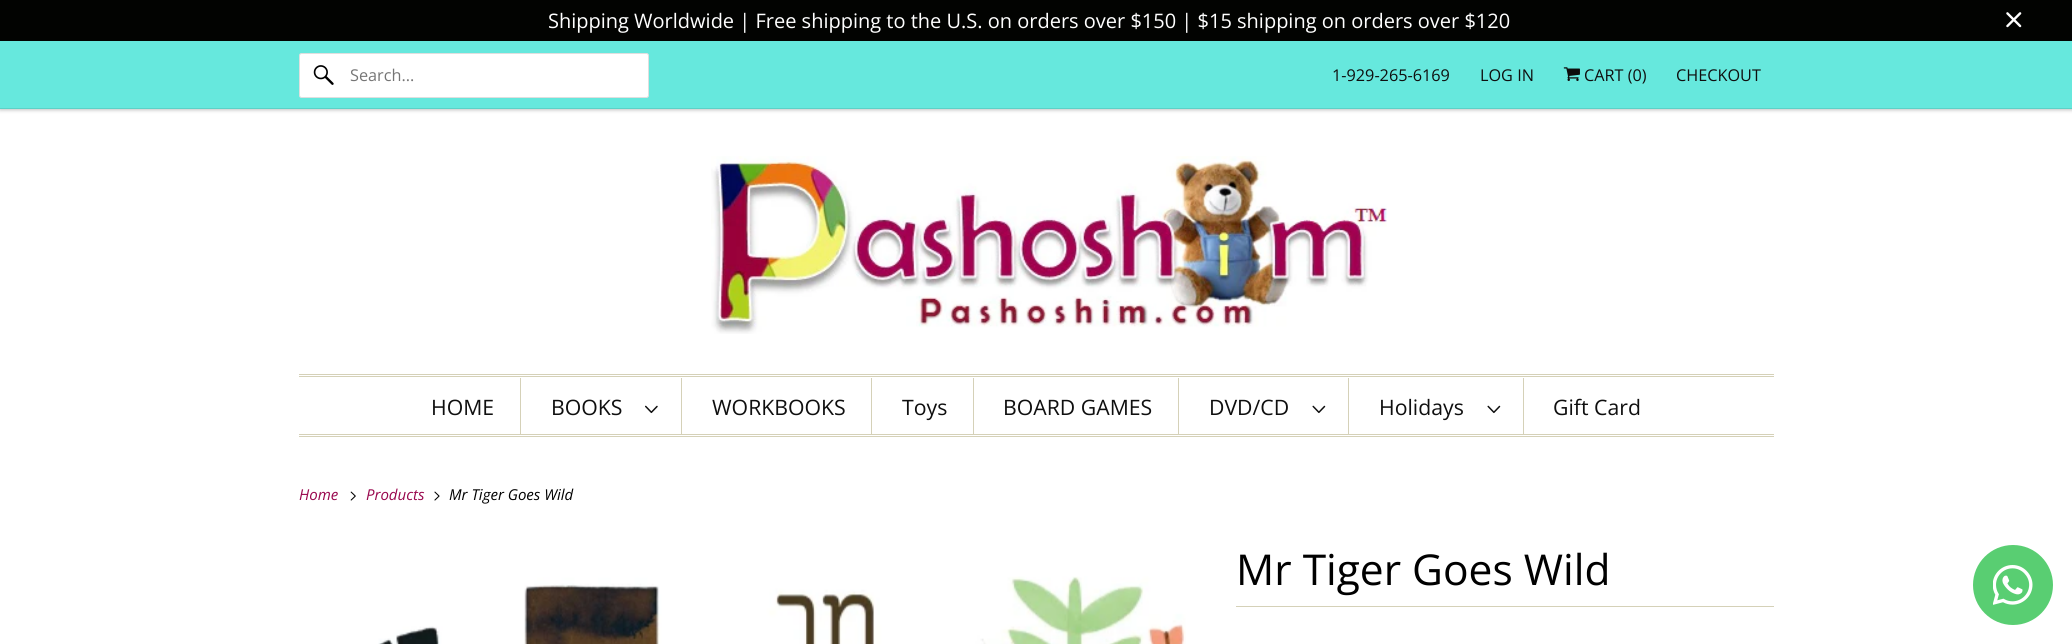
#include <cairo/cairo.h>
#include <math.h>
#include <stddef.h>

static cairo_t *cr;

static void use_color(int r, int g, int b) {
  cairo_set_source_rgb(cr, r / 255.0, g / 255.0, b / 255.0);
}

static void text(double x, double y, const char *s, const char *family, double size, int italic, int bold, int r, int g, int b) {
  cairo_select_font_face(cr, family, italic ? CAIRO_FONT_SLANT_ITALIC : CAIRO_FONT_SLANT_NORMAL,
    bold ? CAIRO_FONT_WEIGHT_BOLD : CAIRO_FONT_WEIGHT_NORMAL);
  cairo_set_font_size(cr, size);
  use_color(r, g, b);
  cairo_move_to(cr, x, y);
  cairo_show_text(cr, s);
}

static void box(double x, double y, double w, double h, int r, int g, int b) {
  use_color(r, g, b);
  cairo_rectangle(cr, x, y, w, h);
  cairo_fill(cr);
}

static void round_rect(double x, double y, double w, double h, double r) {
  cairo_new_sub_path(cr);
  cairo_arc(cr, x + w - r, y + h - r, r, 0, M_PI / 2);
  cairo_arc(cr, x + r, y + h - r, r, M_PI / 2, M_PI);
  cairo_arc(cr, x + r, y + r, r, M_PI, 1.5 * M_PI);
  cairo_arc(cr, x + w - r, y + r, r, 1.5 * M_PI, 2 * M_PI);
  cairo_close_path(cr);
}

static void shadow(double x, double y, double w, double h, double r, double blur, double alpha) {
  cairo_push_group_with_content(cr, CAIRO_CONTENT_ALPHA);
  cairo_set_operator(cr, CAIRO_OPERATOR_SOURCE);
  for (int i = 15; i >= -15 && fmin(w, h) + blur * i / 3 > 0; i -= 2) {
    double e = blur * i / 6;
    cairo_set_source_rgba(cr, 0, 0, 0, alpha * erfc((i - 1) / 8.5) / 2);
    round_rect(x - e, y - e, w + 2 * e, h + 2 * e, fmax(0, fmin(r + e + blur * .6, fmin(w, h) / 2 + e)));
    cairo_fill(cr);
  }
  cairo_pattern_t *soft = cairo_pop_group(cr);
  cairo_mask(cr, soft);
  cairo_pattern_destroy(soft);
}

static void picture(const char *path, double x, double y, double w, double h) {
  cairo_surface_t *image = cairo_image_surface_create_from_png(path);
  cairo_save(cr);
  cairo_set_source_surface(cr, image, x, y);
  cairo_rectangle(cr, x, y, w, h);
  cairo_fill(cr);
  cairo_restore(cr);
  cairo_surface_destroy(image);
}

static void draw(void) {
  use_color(255, 255, 255);
  cairo_paint(cr);
  box(0, 0, 2072, 41, 2, 3, 1);
  picture("img_01.png", 2006, 12, 16, 16);
  use_color(0, 0, 0);
  shadow(0, 43, 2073, 67, 0, 2, 0.25);
  box(0, 41, 2072, 67, 102, 232, 221);
  box(0, 108, 2072, 1, 92, 209, 199);
  use_color(255, 255, 255);
  round_rect(299.5, 53.5, 349, 44, 2);
  cairo_fill_preserve(cr);
  use_color(223, 223, 223);
  cairo_set_line_width(cr, 1);
  cairo_stroke(cr);
  picture("img_02.png", 313, 65, 21, 20);
  picture("img_03.png", 1563, 67, 17, 14);
  picture("img_04.png", 711, 156, 676, 178);
  box(299, 374, 1475, 1, 213, 209, 184);
  box(299, 376, 1475, 1, 213, 209, 184);
  box(299, 434, 1475, 1, 213, 209, 184);
  box(299, 436, 1475, 1, 213, 209, 184);
  box(520, 378, 1, 56, 213, 209, 184);
  box(681, 378, 1, 56, 213, 209, 184);
  picture("img_05.png", 645, 405, 13, 9);
  box(871, 378, 1, 56, 213, 209, 184);
  box(973, 378, 1, 56, 213, 209, 184);
  box(1178, 378, 1, 56, 213, 209, 184);
  box(1348, 378, 1, 56, 213, 209, 184);
  picture("img_06.png", 1312, 405, 14, 9);
  box(1523, 378, 1, 56, 213, 209, 184);
  picture("img_06.png", 1487, 405, 14, 9);
  picture("img_07.png", 350, 491, 6, 10);
  picture("img_08.png", 434, 491, 6, 10);
  picture("img_09.png", 378, 576, 808, 68);
  box(1236, 606, 538, 1, 213, 209, 184);
  use_color(89, 206, 114);
  cairo_arc(cr, 2013, 585, 40, 0, 2 * M_PI);
  cairo_fill(cr);
  picture("img_10.png", 1993, 565, 40, 40);
  text(548, 28, "Shipping Worldwide | Free shipping to the U.S. on orders over $150 | $15 shipping on orders over $120", "Open Sans", 20, 0, 0, 255, 255, 255);
  text(350, 81, "Search...", "Open Sans", 16.25, 0, 0, 117, 117, 117);
  text(1332, 81, "1-929-265-6169", "Open Sans", 16.25, 0, 0, 15, 15, 15);
  text(1480, 81, "LOG IN", "Open Sans", 16.25, 0, 0, 15, 15, 15);
  text(1584, 81, "CART (0)", "Open Sans", 16.25, 0, 0, 15, 15, 15);
  text(1676, 81, "CHECKOUT", "Open Sans", 16.25, 0, 0, 15, 15, 15);
  text(431, 415, "HOME", "Open Sans", 21.25, 0, 0, 15, 15, 15);
  text(551, 415, "BOOKS", "Open Sans", 21.25, 0, 0, 15, 15, 15);
  text(712, 415, "WORKBOOKS", "Open Sans", 21.25, 0, 0, 15, 15, 15);
  text(902, 415, "Toys", "Open Sans", 21.25, 0, 0, 15, 15, 15);
  text(1003, 415, "BOARD GAMES", "Open Sans", 21.25, 0, 0, 15, 15, 15);
  text(1209, 415, "DVD/CD", "Open Sans", 21.25, 0, 0, 15, 15, 15);
  text(1379, 415, "Holidays", "Open Sans", 21.25, 0, 0, 15, 15, 15);
  text(1553, 415, "Gift Card", "Open Sans", 21.25, 0, 0, 15, 15, 15);
  text(299, 500, "Home", "Open Sans", 15, 1, 0, 153, 6, 77);
  text(366, 500, "Products", "Open Sans", 15, 1, 0, 153, 6, 77);
  text(449, 500, "Mr Tiger Goes Wild", "Open Sans", 15, 1, 0, 0, 0, 0);
  text(1236, 585, "Mr Tiger Goes Wild", "Open Sans", 42.5, 0, 0, 0, 0, 0);
}

int main(void) {
  cairo_surface_t *surface = cairo_image_surface_create(CAIRO_FORMAT_RGB24, 2072, 644);
  cr = cairo_create(surface);
  cairo_font_options_t *options = cairo_font_options_create();
  cairo_font_options_set_hint_metrics(options, CAIRO_HINT_METRICS_OFF);
  cairo_font_options_set_hint_style(options, CAIRO_HINT_STYLE_NONE);
  cairo_set_font_options(cr, options);
  cairo_set_miter_limit(cr, 4);
  draw();
  cairo_surface_write_to_png(surface, "out.png");
  cairo_font_options_destroy(options);
  cairo_destroy(cr);
  cairo_surface_destroy(surface);
  return 0;
}
